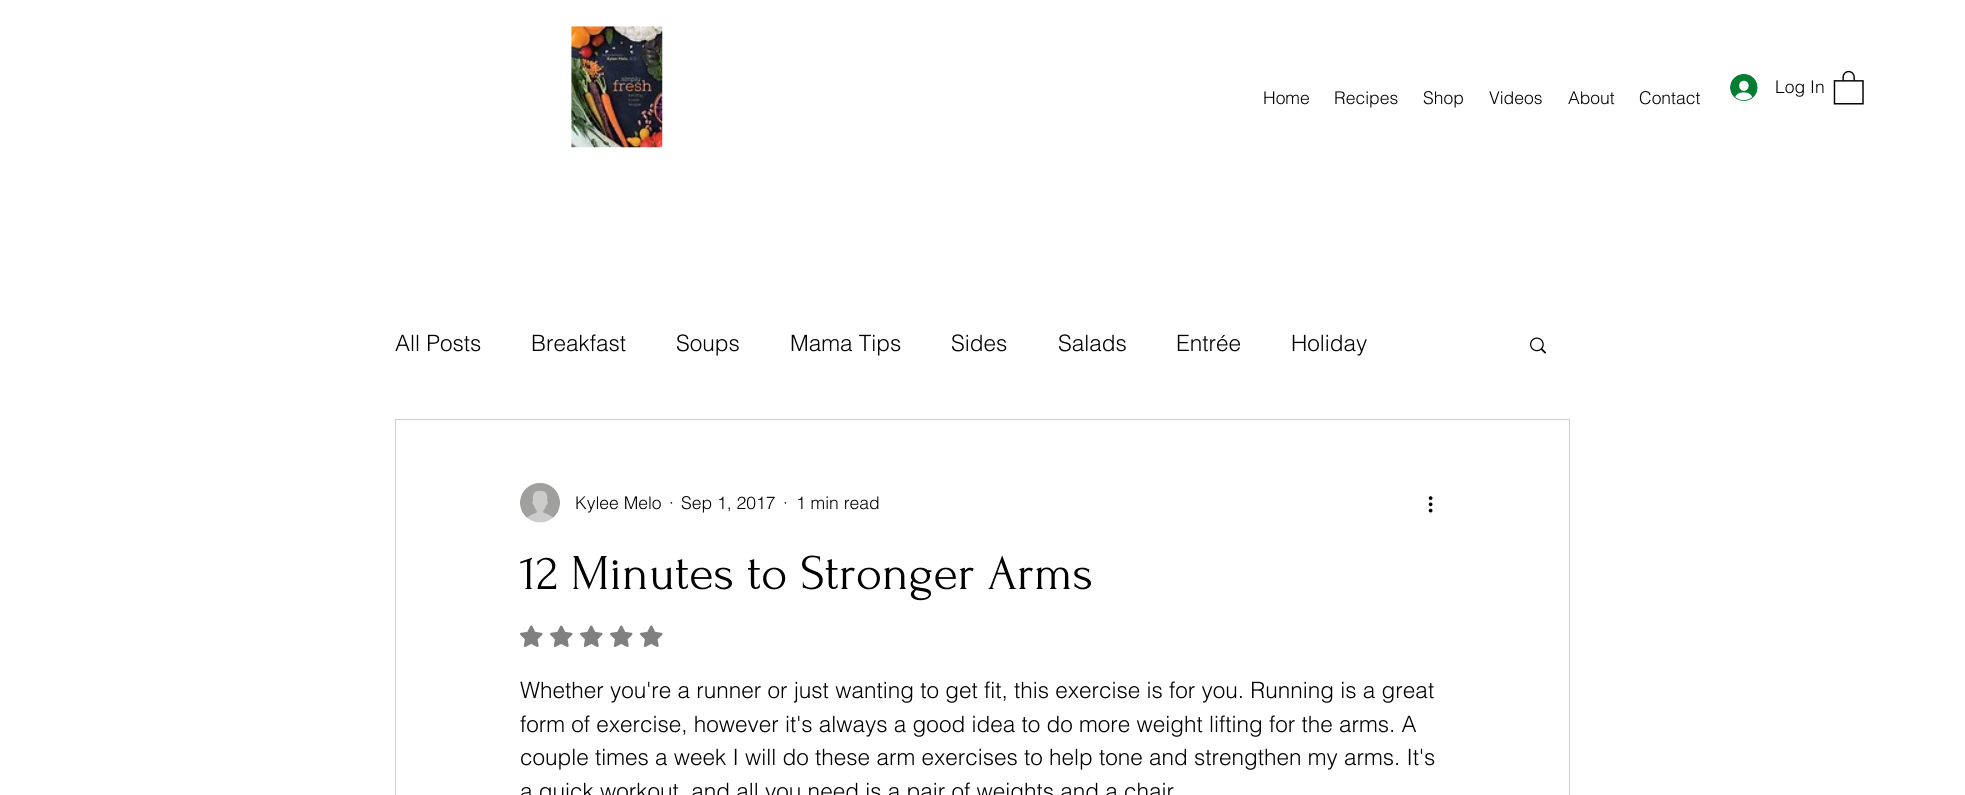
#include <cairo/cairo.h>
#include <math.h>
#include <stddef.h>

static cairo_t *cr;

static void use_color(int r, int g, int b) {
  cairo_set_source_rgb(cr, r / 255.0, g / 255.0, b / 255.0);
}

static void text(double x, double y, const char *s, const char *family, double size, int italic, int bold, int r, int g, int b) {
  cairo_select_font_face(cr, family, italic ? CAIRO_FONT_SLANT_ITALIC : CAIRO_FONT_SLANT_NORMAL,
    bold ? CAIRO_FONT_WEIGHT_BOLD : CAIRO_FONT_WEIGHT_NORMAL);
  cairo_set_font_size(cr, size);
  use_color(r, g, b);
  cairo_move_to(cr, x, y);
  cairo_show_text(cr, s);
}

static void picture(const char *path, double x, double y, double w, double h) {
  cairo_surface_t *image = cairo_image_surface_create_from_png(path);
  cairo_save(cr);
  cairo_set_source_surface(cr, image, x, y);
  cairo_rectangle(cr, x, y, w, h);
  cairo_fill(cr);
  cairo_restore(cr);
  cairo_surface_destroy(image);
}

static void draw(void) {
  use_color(255, 255, 255);
  cairo_paint(cr);
  picture("img_01.png", 571, 26, 92, 122);
  picture("img_02.png", 1730, 74, 28, 27);
  picture("img_03.png", 1833, 70, 31, 35);
  picture("img_04.png", 1530, 337, 17, 17);
  cairo_rectangle(cr, 395.5, 419.5, 1174, 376);
  use_color(207, 207, 207);
  cairo_set_line_width(cr, 1);
  cairo_stroke(cr);
  picture("img_05.png", 520, 483, 40, 40);
  picture("img_06.png", 1428, 496, 5, 17);
  picture("img_07.png", 520, 625, 23, 22);
  picture("img_07.png", 550, 625, 23, 22);
  picture("img_07.png", 580, 625, 23, 22);
  picture("img_07.png", 610, 625, 23, 22);
  picture("img_07.png", 640, 625, 23, 22);
  text(1775, 93, "Log In", "helvetica Light", 17.5, 0, 0, 0, 0, 0);
  text(1263, 104, "Home", "helvetica Light", 17.5, 0, 0, 0, 0, 0);
  text(1334, 104, "Recipes", "helvetica Light", 17.5, 0, 0, 0, 0, 0);
  text(1423, 104, "Shop", "helvetica Light", 17.5, 0, 0, 0, 0, 0);
  text(1489, 104, "Videos", "helvetica Light", 17.5, 0, 0, 0, 0, 0);
  text(1568, 104, "About", "helvetica Light", 17.5, 0, 0, 0, 0, 0);
  text(1639, 104, "Contact", "helvetica Light", 17.5, 0, 0, 0, 0, 0);
  text(395, 351, "All Posts", "helvetica Light", 22.5, 0, 0, 0, 0, 0);
  text(531, 351, "Breakfast", "helvetica Light", 22.5, 0, 0, 0, 0, 0);
  text(676, 351, "Soups", "helvetica Light", 22.5, 0, 0, 0, 0, 0);
  text(790, 351, "Mama Tips", "helvetica Light", 22.5, 0, 0, 0, 0, 0);
  text(951, 351, "Sides", "helvetica Light", 22.5, 0, 0, 0, 0, 0);
  text(1058, 351, "Salads", "helvetica Light", 22.5, 0, 0, 0, 0, 0);
  text(1176, 351, "Entrée", "helvetica Light", 22.5, 0, 0, 0, 0, 0);
  text(1291, 351, "Holiday", "helvetica Light", 22.5, 0, 0, 0, 0, 0);
  text(575, 509, "Kylee Melo", "helvetica Light", 17.5, 0, 0, 0, 0, 0);
  text(669, 509, "·", "helvetica Light", 17.5, 0, 0, 0, 0, 0);
  text(681, 509, "Sep 1, 2017", "helvetica Light", 17.5, 0, 0, 0, 0, 0);
  text(783, 509, "·", "helvetica Light", 17.5, 0, 0, 0, 0, 0);
  text(796, 509, "1 min read", "helvetica Light", 17.5, 0, 0, 0, 0, 0);
  text(520, 589, "12 Minutes to Stronger Arms", "Forum", 50, 0, 0, 0, 0, 0);
  text(520, 698, "Whether you're a runner or just wanting to get fit, this exercise is for you. Running is a great", "helvetica Light", 22.5, 0, 0, 0, 0, 0);
  text(520, 732, "form of exercise, however it's always a good idea to do more weight lifting for the arms. A", "helvetica Light", 22.5, 0, 0, 0, 0, 0);
  text(520, 765, "couple times a week I will do these arm exercises to help tone and strengthen my arms. It's", "helvetica Light", 22.5, 0, 0, 0, 0, 0);
  text(520, 799, "a quick workout, and all you need is a pair of weights and a chair", "helvetica Light", 22.5, 0, 0, 0, 0, 0);
}

int main(void) {
  cairo_surface_t *surface = cairo_image_surface_create(CAIRO_FORMAT_RGB24, 1965, 795);
  cr = cairo_create(surface);
  cairo_font_options_t *options = cairo_font_options_create();
  cairo_font_options_set_hint_metrics(options, CAIRO_HINT_METRICS_OFF);
  cairo_font_options_set_hint_style(options, CAIRO_HINT_STYLE_NONE);
  cairo_set_font_options(cr, options);
  cairo_set_miter_limit(cr, 4);
  draw();
  cairo_surface_write_to_png(surface, "out.png");
  cairo_font_options_destroy(options);
  cairo_destroy(cr);
  cairo_surface_destroy(surface);
  return 0;
}
